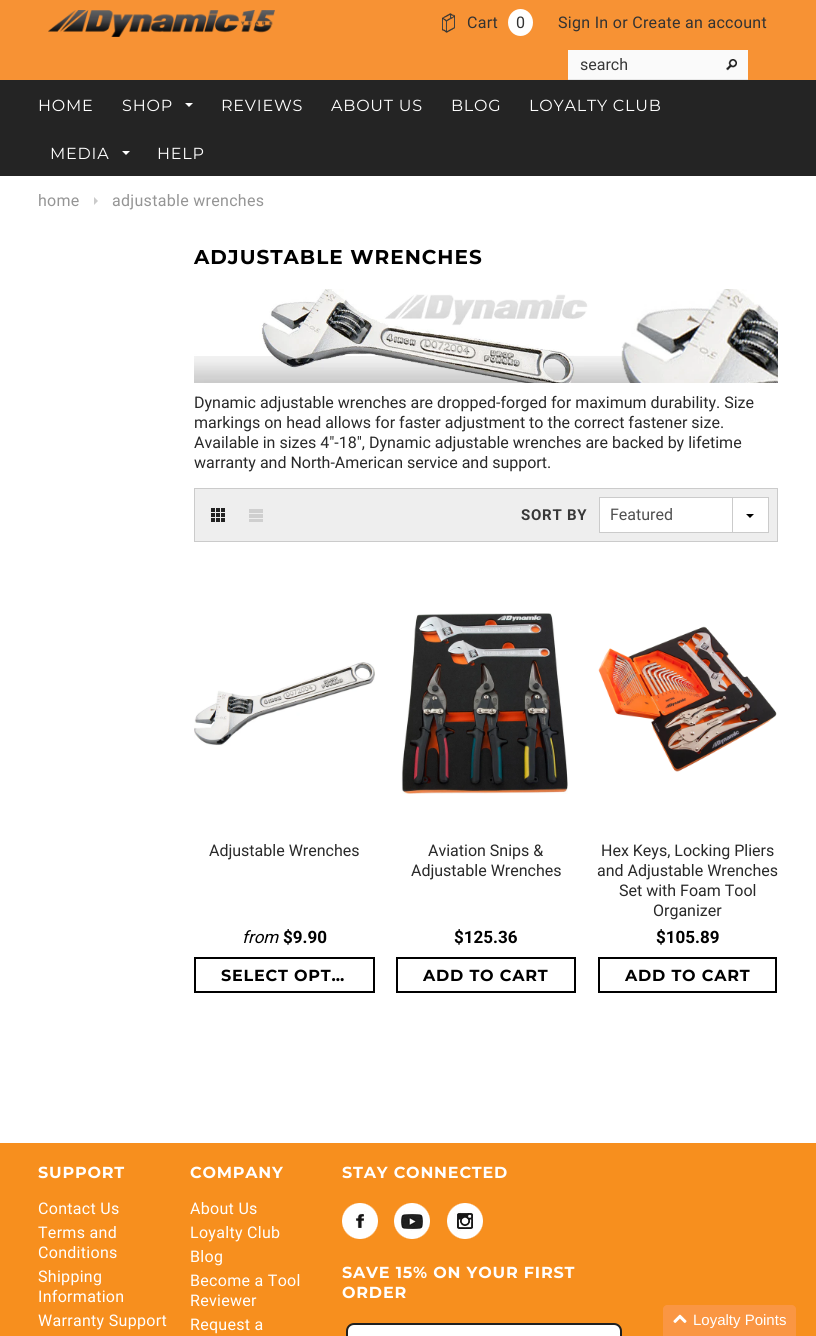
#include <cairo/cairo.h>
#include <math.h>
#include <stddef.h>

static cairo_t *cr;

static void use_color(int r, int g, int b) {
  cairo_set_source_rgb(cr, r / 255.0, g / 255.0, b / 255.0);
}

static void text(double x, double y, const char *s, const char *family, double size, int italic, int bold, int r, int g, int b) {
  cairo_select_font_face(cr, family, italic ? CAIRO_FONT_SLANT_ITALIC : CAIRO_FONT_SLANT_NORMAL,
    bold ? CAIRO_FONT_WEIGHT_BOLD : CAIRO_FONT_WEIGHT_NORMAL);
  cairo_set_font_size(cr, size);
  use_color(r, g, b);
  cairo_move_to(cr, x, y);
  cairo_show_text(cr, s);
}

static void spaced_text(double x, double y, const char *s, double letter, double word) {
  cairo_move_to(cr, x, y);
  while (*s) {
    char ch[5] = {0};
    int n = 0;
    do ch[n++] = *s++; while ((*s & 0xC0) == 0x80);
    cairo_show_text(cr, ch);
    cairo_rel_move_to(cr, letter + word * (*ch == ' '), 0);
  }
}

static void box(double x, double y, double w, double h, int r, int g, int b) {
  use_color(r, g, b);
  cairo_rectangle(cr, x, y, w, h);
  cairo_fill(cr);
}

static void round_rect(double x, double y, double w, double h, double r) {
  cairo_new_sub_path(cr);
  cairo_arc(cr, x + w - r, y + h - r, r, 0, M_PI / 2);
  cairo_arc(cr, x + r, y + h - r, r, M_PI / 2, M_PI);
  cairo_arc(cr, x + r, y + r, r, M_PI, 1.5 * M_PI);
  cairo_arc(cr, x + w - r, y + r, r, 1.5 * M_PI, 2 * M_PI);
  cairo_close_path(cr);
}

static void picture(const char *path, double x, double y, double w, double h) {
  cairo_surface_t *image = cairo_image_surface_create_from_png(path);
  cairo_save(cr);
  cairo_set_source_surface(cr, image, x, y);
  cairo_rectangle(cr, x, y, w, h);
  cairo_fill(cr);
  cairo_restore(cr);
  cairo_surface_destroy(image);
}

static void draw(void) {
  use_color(255, 255, 255);
  cairo_paint(cr);
  box(0, 0, 816, 80, 247, 146, 52);
  picture("img_01.png", 48, 10, 227, 27);
  picture("img_02.png", 442, 13, 13, 20);
  use_color(255, 255, 255);
  cairo_new_path(cr);
  cairo_move_to(cr, 520.5, 9);
  cairo_curve_to(cr, 527.5, 9, 533, 15, 533, 22.5);
  cairo_curve_to(cr, 533, 30, 527.5, 36, 520.5, 36);
  cairo_curve_to(cr, 513.5, 36, 508, 30, 508, 22.5);
  cairo_curve_to(cr, 508, 15, 513.5, 9, 520.5, 9);
  cairo_close_path(cr);
  cairo_fill(cr);
  box(568, 50, 180, 29, 250, 250, 250);
  box(568, 79, 180, 1, 231, 231, 231);
  picture("img_03.png", 726, 59, 11, 12);
  box(0, 80, 816, 96, 36, 36, 36);
  use_color(255, 255, 255);
  cairo_new_path(cr);
  cairo_move_to(cr, 185, 103);
  cairo_line_to(cr, 193, 103);
  cairo_line_to(cr, 189, 107);
  cairo_close_path(cr);
  cairo_fill(cr);
  cairo_new_path(cr);
  cairo_move_to(cr, 122, 151);
  cairo_line_to(cr, 130, 151);
  cairo_line_to(cr, 126, 155);
  cairo_close_path(cr);
  cairo_fill(cr);
  use_color(203, 203, 203);
  cairo_new_path(cr);
  cairo_move_to(cr, 94, 205);
  cairo_line_to(cr, 94, 197);
  cairo_line_to(cr, 98, 201);
  cairo_close_path(cr);
  cairo_fill(cr);
  picture("img_04.png", 194, 289, 584, 94);
  use_color(238, 238, 238);
  cairo_rectangle(cr, 194.5, 488.5, 583, 53);
  cairo_fill_preserve(cr);
  use_color(203, 203, 203);
  cairo_set_line_width(cr, 1);
  cairo_stroke(cr);
  picture("img_05.png", 211, 508, 14, 14);
  picture("img_06.png", 249, 509, 14, 13);
  use_color(255, 255, 255);
  cairo_rectangle(cr, 599.5, 497.5, 169, 35);
  cairo_fill_preserve(cr);
  use_color(203, 203, 203);
  cairo_stroke(cr);
  box(732, 498, 1, 34, 203, 203, 203);
  use_color(0, 0, 0);
  cairo_new_path(cr);
  cairo_move_to(cr, 746, 514);
  cairo_line_to(cr, 754, 514);
  cairo_line_to(cr, 750, 518);
  cairo_close_path(cr);
  cairo_fill(cr);
  picture("img_07.png", 194, 662, 181, 84);
  cairo_rectangle(cr, 195, 958, 179, 34);
  cairo_set_line_width(cr, 2);
  cairo_stroke(cr);
  picture("img_08.png", 401, 613, 167, 181);
  cairo_rectangle(cr, 397, 958, 178, 34);
  cairo_stroke(cr);
  picture("img_09.png", 598, 626, 179, 146);
  cairo_rectangle(cr, 599, 958, 177, 34);
  cairo_stroke(cr);
  box(0, 1143, 816, 193, 247, 143, 30);
  picture("img_10.png", 342, 1203, 36, 36);
  picture("img_11.png", 394, 1203, 36, 36);
  picture("img_12.png", 447, 1203, 36, 36);
  use_color(255, 255, 255);
  round_rect(347, 1324, 274, 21, 7);
  cairo_fill_preserve(cr);
  use_color(31, 32, 33);
  cairo_stroke(cr);
  use_color(250, 150, 67);
  cairo_new_path(cr);
  cairo_move_to(cr, 667, 1305);
  cairo_line_to(cr, 792, 1305);
  cairo_curve_to(cr, 794, 1305, 796, 1307, 796, 1309);
  cairo_line_to(cr, 796, 1336);
  cairo_line_to(cr, 663, 1336);
  cairo_line_to(cr, 663, 1309);
  cairo_curve_to(cr, 663, 1307, 665, 1305, 667, 1305);
  cairo_close_path(cr);
  cairo_fill(cr);
  picture("img_13.png", 673, 1314, 14, 9);
  cairo_select_font_face(cr, "Roboto", CAIRO_FONT_SLANT_NORMAL, CAIRO_FONT_WEIGHT_NORMAL);
  cairo_set_font_size(cr, 16);
  use_color(50, 50, 50);
  spaced_text(467, 28, "Cart", 0.3, 0);
  spaced_text(516, 28, "0", 0.3, 0);
  spaced_text(558, 28, "Sign In or Create an account", 0.3, 0);
  text(580, 70, "search", "Roboto", 16, 0, 0, 56, 56, 56);
  cairo_select_font_face(cr, "Montserrat", CAIRO_FONT_SLANT_NORMAL, CAIRO_FONT_WEIGHT_NORMAL);
  use_color(255, 255, 255);
  spaced_text(38, 111, "HOME", 0.8, 0);
  spaced_text(122, 111, "SHOP", 0.8, 0);
  spaced_text(221, 111, "REVIEWS", 0.8, 0);
  spaced_text(331, 111, "ABOUT US", 0.8, 0);
  spaced_text(451, 111, "BLOG", 0.8, 0);
  spaced_text(529, 111, "LOYALTY CLUB", 0.8, 0);
  spaced_text(50, 159, "MEDIA", 0.8, 0);
  spaced_text(157, 159, "HELP", 0.8, 0);
  cairo_select_font_face(cr, "Roboto", CAIRO_FONT_SLANT_NORMAL, CAIRO_FONT_WEIGHT_NORMAL);
  use_color(149, 149, 149);
  spaced_text(38, 206, "home", 0.3, 0);
  spaced_text(112, 206, "adjustable wrenches", 0.3, 0);
  cairo_select_font_face(cr, "Montserrat", CAIRO_FONT_SLANT_NORMAL, CAIRO_FONT_WEIGHT_BOLD);
  cairo_set_font_size(cr, 20);
  use_color(0, 0, 0);
  spaced_text(194, 264, "ADJUSTABLE WRENCHES", 1, 0);
  text(194, 408, "Dynamic adjustable wrenches are dropped-forged for maximum durability. Size", "Roboto", 16, 0, 0, 41, 41, 41);
  text(194, 428, "markings on head allows for faster adjustment to the correct fastener size.", "Roboto", 16, 0, 0, 41, 41, 41);
  text(194, 448, "Available in sizes 4\"-18\", Dynamic adjustable wrenches are backed by lifetime", "Roboto", 16, 0, 0, 41, 41, 41);
  text(194, 468, "warranty and North-American service and support.", "Roboto", 16, 0, 0, 41, 41, 41);
  cairo_select_font_face(cr, "Roboto", CAIRO_FONT_SLANT_NORMAL, CAIRO_FONT_WEIGHT_BOLD);
  cairo_set_font_size(cr, 15);
  use_color(56, 56, 56);
  spaced_text(521, 520, "SORT BY", 0.75, 0);
  text(610, 520, "Featured", "Roboto", 16, 0, 0, 80, 80, 80);
  text(209, 856, "Adjustable Wrenches", "Roboto", 16, 0, 0, 41, 41, 41);
  text(242, 943, "from", "Roboto", 17, 1, 0, 0, 0, 0);
  text(283, 943, "$9.90", "Roboto", 17, 0, 1, 0, 0, 0);
  cairo_select_font_face(cr, "Montserrat", CAIRO_FONT_SLANT_NORMAL, CAIRO_FONT_WEIGHT_BOLD);
  cairo_set_font_size(cr, 16);
  spaced_text(221, 981, "SELECT OPT…", 0.8, 0);
  text(428, 856, "Aviation Snips &", "Roboto", 16, 0, 0, 41, 41, 41);
  text(411, 876, "Adjustable Wrenches", "Roboto", 16, 0, 0, 41, 41, 41);
  text(454, 943, "$125.36", "Roboto", 17, 0, 1, 0, 0, 0);
  cairo_select_font_face(cr, "Montserrat", CAIRO_FONT_SLANT_NORMAL, CAIRO_FONT_WEIGHT_BOLD);
  cairo_set_font_size(cr, 16);
  spaced_text(423, 981, "ADD TO CART", 0.8, 0);
  text(601, 856, "Hex Keys, Locking Pliers", "Roboto", 16, 0, 0, 41, 41, 41);
  text(597, 876, "and Adjustable Wrenches", "Roboto", 16, 0, 0, 41, 41, 41);
  text(619, 896, "Set with Foam Tool", "Roboto", 16, 0, 0, 41, 41, 41);
  text(653, 916, "Organizer", "Roboto", 16, 0, 0, 41, 41, 41);
  text(656, 943, "$105.89", "Roboto", 17, 0, 1, 0, 0, 0);
  cairo_select_font_face(cr, "Montserrat", CAIRO_FONT_SLANT_NORMAL, CAIRO_FONT_WEIGHT_BOLD);
  cairo_set_font_size(cr, 16);
  spaced_text(625, 981, "ADD TO CART", 0.8, 0);
  use_color(255, 255, 255);
  spaced_text(38, 1178, "SUPPORT", 0.8, 0);
  cairo_select_font_face(cr, "Roboto", CAIRO_FONT_SLANT_NORMAL, CAIRO_FONT_WEIGHT_NORMAL);
  spaced_text(38, 1214, "Contact Us", 0.3, 0);
  spaced_text(38, 1238, "Terms and", 0.3, 0);
  spaced_text(38, 1258, "Conditions", 0.3, 0);
  spaced_text(38, 1282, "Shipping", 0.3, 0);
  spaced_text(38, 1302, "Information", 0.3, 0);
  spaced_text(38, 1326, "Warranty Support", 0.3, 0);
  cairo_select_font_face(cr, "Montserrat", CAIRO_FONT_SLANT_NORMAL, CAIRO_FONT_WEIGHT_BOLD);
  spaced_text(190, 1178, "COMPANY", 0.8, 0);
  cairo_select_font_face(cr, "Roboto", CAIRO_FONT_SLANT_NORMAL, CAIRO_FONT_WEIGHT_NORMAL);
  spaced_text(190, 1214, "About Us", 0.3, 0);
  spaced_text(190, 1238, "Loyalty Club", 0.3, 0);
  spaced_text(190, 1262, "Blog", 0.3, 0);
  spaced_text(190, 1286, "Become a Tool", 0.3, 0);
  spaced_text(190, 1306, "Reviewer", 0.3, 0);
  spaced_text(190, 1330, "Request a", 0.3, 0);
  cairo_select_font_face(cr, "Montserrat", CAIRO_FONT_SLANT_NORMAL, CAIRO_FONT_WEIGHT_BOLD);
  spaced_text(342, 1178, "STAY CONNECTED", 0.8, 0);
  spaced_text(342, 1278, "SAVE 15% ON YOUR FIRST", 0.8, 0);
  spaced_text(342, 1298, "ORDER", 0.8, 0);
  text(693, 1325, "Loyalty Points", "Liberation Sans", 15, 0, 0, 255, 255, 255);
}

int main(void) {
  cairo_surface_t *surface = cairo_image_surface_create(CAIRO_FORMAT_RGB24, 816, 1336);
  cr = cairo_create(surface);
  cairo_font_options_t *options = cairo_font_options_create();
  cairo_font_options_set_hint_metrics(options, CAIRO_HINT_METRICS_OFF);
  cairo_font_options_set_hint_style(options, CAIRO_HINT_STYLE_NONE);
  cairo_set_font_options(cr, options);
  cairo_set_miter_limit(cr, 4);
  draw();
  cairo_surface_write_to_png(surface, "out.png");
  cairo_font_options_destroy(options);
  cairo_destroy(cr);
  cairo_surface_destroy(surface);
  return 0;
}
